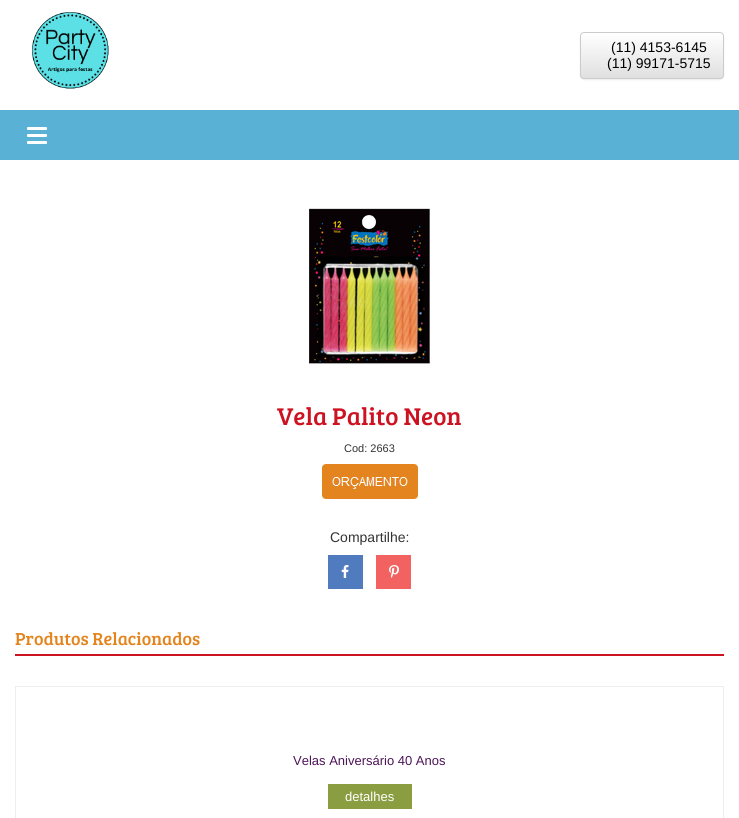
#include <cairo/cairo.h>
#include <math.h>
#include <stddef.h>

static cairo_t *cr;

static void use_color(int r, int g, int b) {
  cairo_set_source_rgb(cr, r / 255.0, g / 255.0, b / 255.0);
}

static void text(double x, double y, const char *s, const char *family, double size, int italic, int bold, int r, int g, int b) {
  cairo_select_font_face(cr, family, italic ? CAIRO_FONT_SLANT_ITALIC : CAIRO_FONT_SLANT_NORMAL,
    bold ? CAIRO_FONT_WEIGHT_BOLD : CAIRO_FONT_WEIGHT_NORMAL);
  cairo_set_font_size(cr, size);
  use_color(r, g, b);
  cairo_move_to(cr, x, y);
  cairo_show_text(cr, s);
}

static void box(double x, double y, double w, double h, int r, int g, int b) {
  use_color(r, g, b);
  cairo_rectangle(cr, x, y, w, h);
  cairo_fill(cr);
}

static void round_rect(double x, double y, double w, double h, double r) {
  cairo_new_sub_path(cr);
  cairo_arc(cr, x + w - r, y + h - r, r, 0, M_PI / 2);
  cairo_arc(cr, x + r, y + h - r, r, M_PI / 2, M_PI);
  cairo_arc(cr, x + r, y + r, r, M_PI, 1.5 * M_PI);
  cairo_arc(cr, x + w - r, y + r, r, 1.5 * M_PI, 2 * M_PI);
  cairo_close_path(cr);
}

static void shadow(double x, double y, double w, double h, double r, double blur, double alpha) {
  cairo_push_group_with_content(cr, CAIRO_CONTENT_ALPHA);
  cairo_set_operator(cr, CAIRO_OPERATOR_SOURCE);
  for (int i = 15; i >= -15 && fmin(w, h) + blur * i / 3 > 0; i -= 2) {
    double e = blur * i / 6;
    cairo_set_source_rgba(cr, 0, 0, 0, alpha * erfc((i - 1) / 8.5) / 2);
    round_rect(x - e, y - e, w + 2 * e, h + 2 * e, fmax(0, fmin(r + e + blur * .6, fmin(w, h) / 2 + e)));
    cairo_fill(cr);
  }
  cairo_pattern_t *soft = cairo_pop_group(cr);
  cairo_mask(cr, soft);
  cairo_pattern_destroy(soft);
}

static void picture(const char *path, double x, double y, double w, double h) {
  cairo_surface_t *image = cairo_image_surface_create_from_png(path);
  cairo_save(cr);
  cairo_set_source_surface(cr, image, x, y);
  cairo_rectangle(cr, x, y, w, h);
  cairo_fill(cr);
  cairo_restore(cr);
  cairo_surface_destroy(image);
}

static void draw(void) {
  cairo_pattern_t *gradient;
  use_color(255, 255, 255);
  cairo_paint(cr);
  picture("img_01.png", 32, 12, 77, 77);
  use_color(0, 0, 0);
  shadow(580, 33, 144, 47, 4, 0.5, 0.07);
  cairo_save(cr);
  round_rect(580, 32, 144, 47, 4);
  cairo_clip(cr);
  gradient = cairo_pattern_create_linear(652, 33, 652, 78);
  cairo_pattern_add_color_stop_rgba(gradient, 0, 1, 1, 1, 1);
  cairo_pattern_add_color_stop_rgba(gradient, 1, 0.878, 0.878, 0.878, 1);
  cairo_set_source(cr, gradient);
  cairo_pattern_destroy(gradient);
  cairo_rectangle(cr, 580, 33, 144, 45);
  cairo_fill(cr);
  cairo_restore(cr);
  round_rect(580.5, 32.5, 143, 46, 3.5);
  use_color(204, 204, 204);
  cairo_set_line_width(cr, 1);
  cairo_stroke(cr);
  box(0, 110, 739, 50, 89, 177, 213);
  use_color(255, 255, 255);
  round_rect(27, 127, 20, 3, 1);
  cairo_fill(cr);
  round_rect(27, 134, 20, 3, 1);
  cairo_fill(cr);
  round_rect(27, 141, 20, 3, 1);
  cairo_fill(cr);
  picture("img_02.png", 309, 208, 121, 156);
  picture("img_03.png", 322, 464, 96, 35);
  box(328, 555, 35, 34, 80, 123, 191);
  picture("img_04.png", 341, 565, 8, 13);
  box(376, 555, 35, 34, 242, 98, 97);
  picture("img_05.png", 389, 565, 10, 13);
  box(15, 654, 709, 2, 205, 19, 33);
  cairo_rectangle(cr, 15.5, 686.5, 708, 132);
  use_color(237, 237, 237);
  cairo_stroke(cr);
  box(328, 784, 84, 25, 138, 157, 65);
  text(611, 52, "(11) 4153-6145", "Liberation Sans", 14, 0, 0, 0, 0, 0);
  text(607, 68, "(11) 99171-5715", "Liberation Sans", 14, 0, 0, 0, 0, 0);
  text(277, 425, "Vela Palito Neon", "Bree Serif", 25, 0, 0, 205, 19, 33);
  text(344, 452, "Cod: 2663", "Liberation Sans", 11, 0, 0, 51, 51, 51);
  text(330, 542, "Compartilhe:", "Liberation Sans", 14, 0, 0, 51, 51, 51);
  text(15, 645, "Produtos Relacionados", "Bree Serif", 18, 0, 0, 227, 132, 29);
  text(293, 765, "Velas Aniversário 40 Anos", "Liberation Sans", 13, 0, 0, 77, 20, 88);
  text(345, 801, "detalhes", "Liberation Sans", 13, 0, 0, 255, 255, 255);
}

int main(void) {
  cairo_surface_t *surface = cairo_image_surface_create(CAIRO_FORMAT_RGB24, 739, 818);
  cr = cairo_create(surface);
  cairo_font_options_t *options = cairo_font_options_create();
  cairo_font_options_set_hint_metrics(options, CAIRO_HINT_METRICS_OFF);
  cairo_font_options_set_hint_style(options, CAIRO_HINT_STYLE_NONE);
  cairo_set_font_options(cr, options);
  cairo_set_miter_limit(cr, 4);
  draw();
  cairo_surface_write_to_png(surface, "out.png");
  cairo_font_options_destroy(options);
  cairo_destroy(cr);
  cairo_surface_destroy(surface);
  return 0;
}
